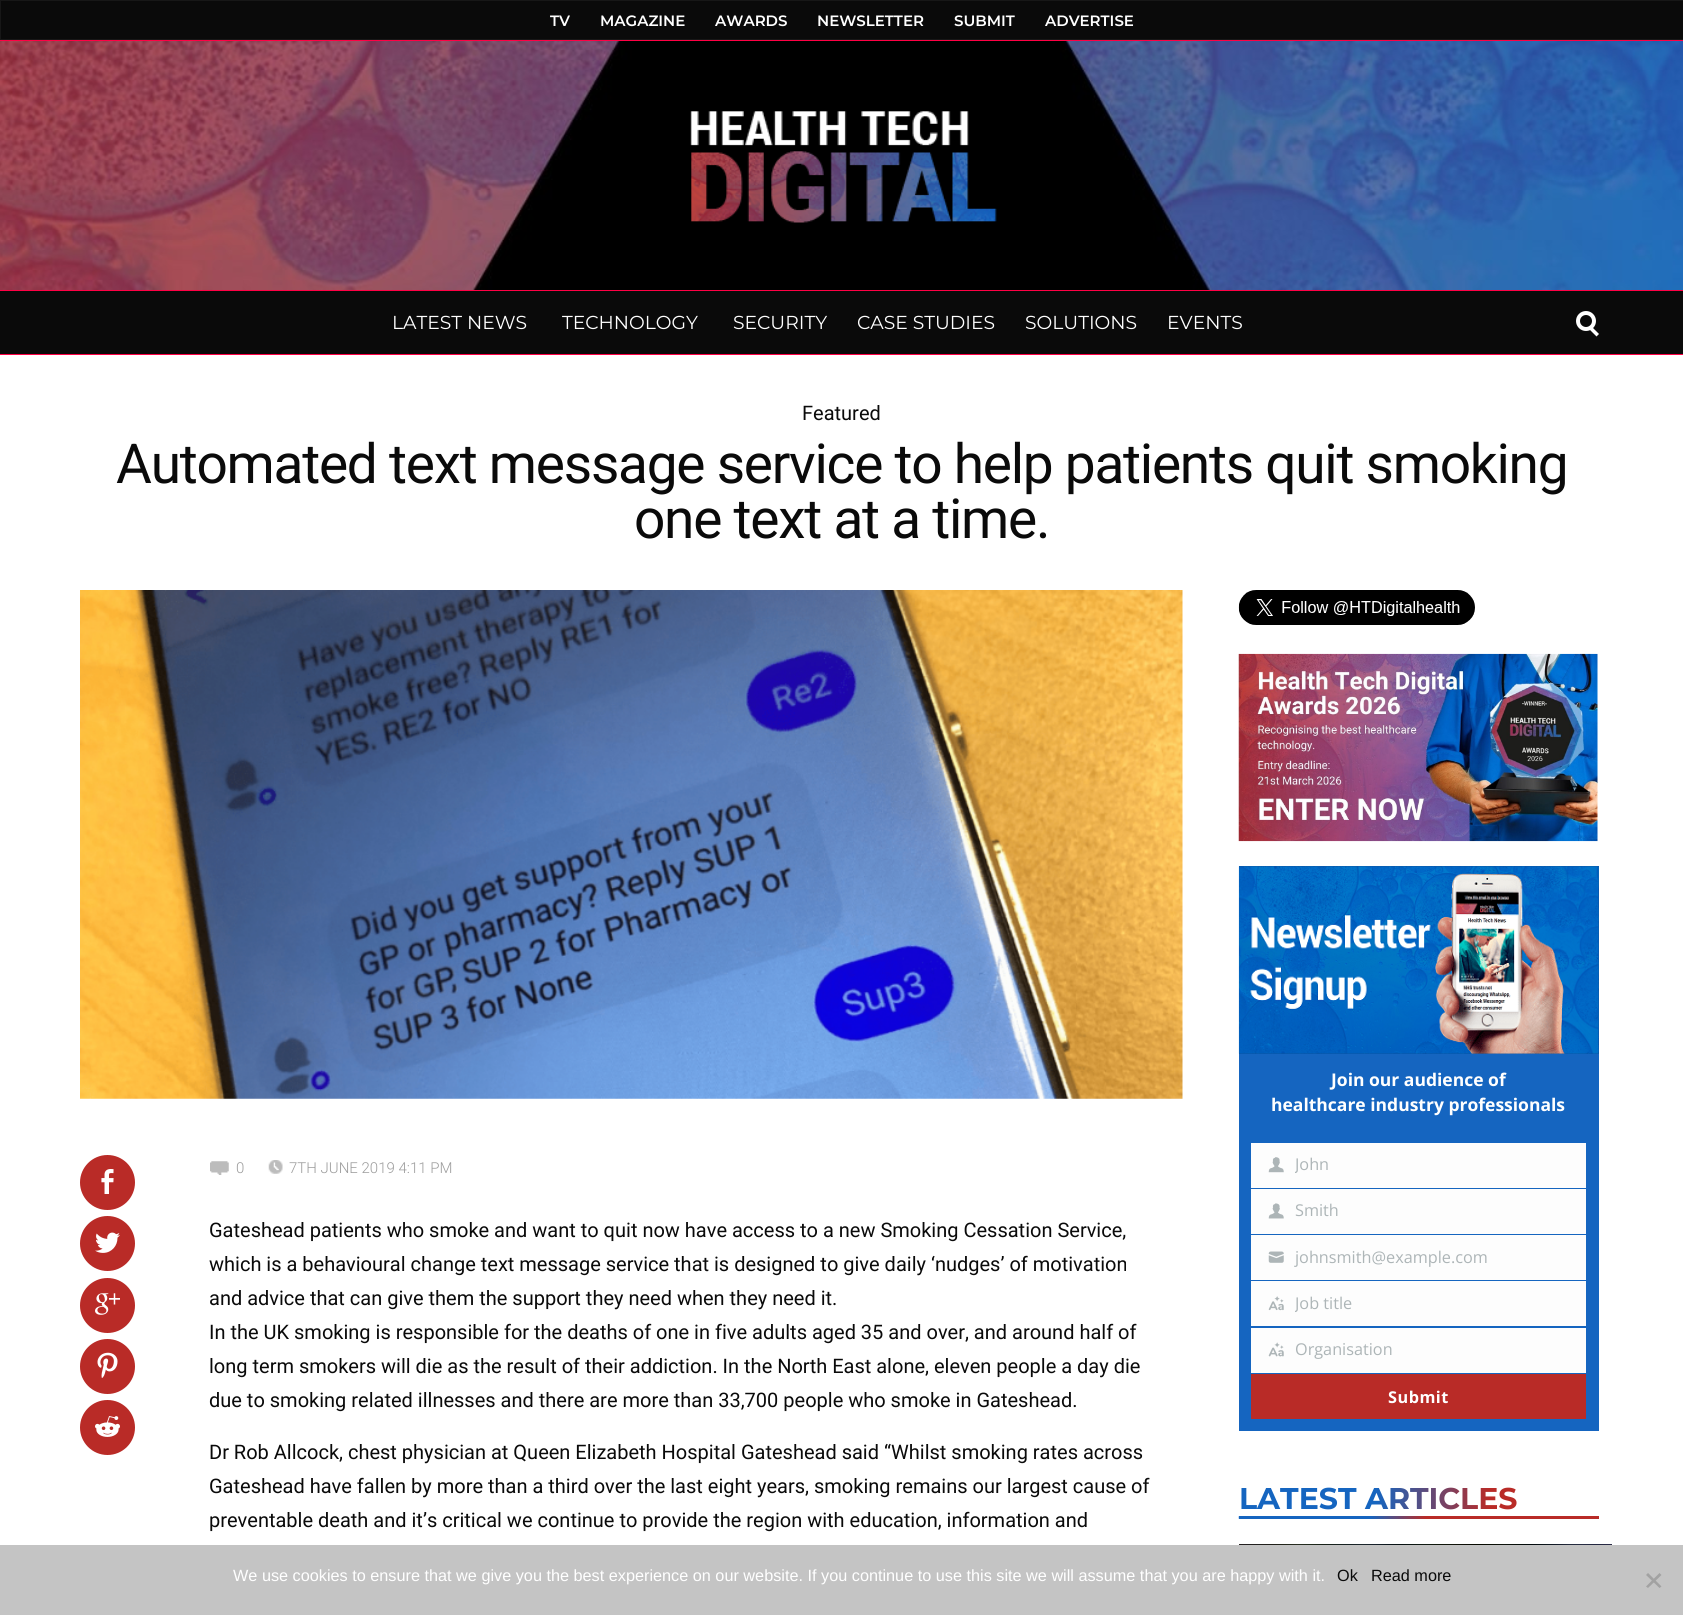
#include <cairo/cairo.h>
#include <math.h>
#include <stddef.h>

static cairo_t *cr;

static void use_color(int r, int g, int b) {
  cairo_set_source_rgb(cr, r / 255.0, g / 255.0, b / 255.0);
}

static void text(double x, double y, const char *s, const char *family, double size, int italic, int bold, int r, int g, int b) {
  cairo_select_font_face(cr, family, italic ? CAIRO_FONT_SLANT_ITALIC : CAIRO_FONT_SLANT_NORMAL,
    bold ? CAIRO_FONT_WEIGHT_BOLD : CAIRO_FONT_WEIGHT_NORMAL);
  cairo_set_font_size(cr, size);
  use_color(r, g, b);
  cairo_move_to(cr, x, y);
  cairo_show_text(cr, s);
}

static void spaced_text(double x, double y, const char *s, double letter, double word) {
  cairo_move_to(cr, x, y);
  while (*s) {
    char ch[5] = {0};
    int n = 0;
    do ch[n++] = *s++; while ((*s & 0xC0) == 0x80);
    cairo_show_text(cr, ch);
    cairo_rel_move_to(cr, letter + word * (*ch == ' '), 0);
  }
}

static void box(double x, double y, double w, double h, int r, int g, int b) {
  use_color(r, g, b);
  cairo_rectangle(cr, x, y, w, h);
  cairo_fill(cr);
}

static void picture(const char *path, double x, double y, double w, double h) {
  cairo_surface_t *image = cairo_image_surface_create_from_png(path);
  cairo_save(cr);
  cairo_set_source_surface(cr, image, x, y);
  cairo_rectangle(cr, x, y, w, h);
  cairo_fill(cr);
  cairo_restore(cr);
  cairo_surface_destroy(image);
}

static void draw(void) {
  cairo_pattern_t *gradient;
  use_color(255, 255, 255);
  cairo_paint(cr);
  use_color(10, 10, 10);
  cairo_rectangle(cr, 0.5, 0.5, 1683, 39);
  cairo_fill_preserve(cr);
  use_color(23, 23, 23);
  cairo_set_line_width(cr, 1);
  cairo_stroke(cr);
  box(0, 40, 1683, 1, 255, 0, 68);
  picture("img_01.png", 0, 41, 1683, 249);
  picture("img_02.png", 690, 111, 307, 112);
  cairo_rectangle(cr, -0.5, 290.5, 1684, 64);
  cairo_stroke(cr);
  box(0, 291, 1683, 63, 10, 10, 10);
  cairo_arc(cr, 1586, 321, 8, 0, 2 * M_PI);
  use_color(255, 255, 255);
  cairo_set_line_width(cr, 4);
  cairo_stroke(cr);
  cairo_new_path(cr);
  cairo_move_to(cr, 1592, 327);
  cairo_line_to(cr, 1599, 334);
  cairo_line_to(cr, 1596.5, 336.5);
  cairo_line_to(cr, 1589.5, 329.5);
  cairo_close_path(cr);
  cairo_fill(cr);
  picture("img_03.png", 80, 590, 1103, 509);
  use_color(185, 43, 39);
  cairo_arc(cr, 107.5, 1182.5, 27.5, 0, 2 * M_PI);
  cairo_fill(cr);
  picture("img_04.png", 101, 1169, 13, 25);
  cairo_arc(cr, 107.5, 1243.5, 27.5, 0, 2 * M_PI);
  cairo_fill(cr);
  picture("img_05.png", 95, 1232, 25, 21);
  cairo_arc(cr, 107.5, 1305.5, 27.5, 0, 2 * M_PI);
  cairo_fill(cr);
  picture("img_06.png", 95, 1293, 25, 22);
  cairo_arc(cr, 107.5, 1366.5, 27.5, 0, 2 * M_PI);
  cairo_fill(cr);
  picture("img_07.png", 97, 1352, 21, 26);
  cairo_arc(cr, 107.5, 1427.5, 27.5, 0, 2 * M_PI);
  cairo_fill(cr);
  picture("img_08.png", 95, 1416, 25, 21);
  picture("img_09.png", 210, 1161, 19, 14);
  picture("img_10.png", 268, 1160, 15, 14);
  picture("img_11.png", 1238, 590, 237, 35);
  picture("img_12.png", 1238, 653, 360, 189);
  box(1239, 1054, 360, 377, 21, 101, 192);
  box(1239, 866, 360, 188, 14, 85, 160);
  picture("img_13.png", 1238, 866, 361, 188);
  box(1251, 1143, 335, 45, 253, 253, 253);
  picture("img_14.png", 1268, 1157, 16, 16);
  box(1251, 1189, 335, 45, 253, 253, 253);
  picture("img_15.png", 1268, 1203, 16, 16);
  box(1251, 1235, 335, 45, 253, 253, 253);
  picture("img_16.png", 1268, 1251, 16, 12);
  box(1251, 1281, 335, 45, 253, 253, 253);
  picture("img_17.png", 1268, 1296, 16, 15);
  box(1251, 1328, 335, 45, 253, 253, 253);
  picture("img_18.png", 1268, 1342, 16, 15);
  box(1251, 1374, 335, 45, 185, 43, 39);
  picture("img_19.png", 1238, 1516, 1, 3);
  gradient = cairo_pattern_create_linear(1239, 1518, 1426, 1518);
  cairo_pattern_add_color_stop_rgba(gradient, 0.7, 0.082, 0.396, 0.753, 1);
  cairo_pattern_add_color_stop_rgba(gradient, 1, 0.725, 0.169, 0.153, 1);
  cairo_set_source(cr, gradient);
  cairo_pattern_destroy(gradient);
  cairo_rectangle(cr, 1239, 1516, 187, 3);
  cairo_fill(cr);
  box(1426, 1516, 173, 3, 185, 43, 39);
  picture("img_20.png", 1239, 1544, 373, 1);
  box(0, 1545, 1683, 70, 196, 196, 196);
  use_color(162, 162, 162);
  cairo_new_path(cr);
  cairo_move_to(cr, 1659.5, 1573);
  cairo_line_to(cr, 1661.5, 1575);
  cairo_line_to(cr, 1648, 1588);
  cairo_line_to(cr, 1646, 1586.5);
  cairo_close_path(cr);
  cairo_fill(cr);
  cairo_new_path(cr);
  cairo_move_to(cr, 1646, 1575);
  cairo_line_to(cr, 1648, 1573);
  cairo_line_to(cr, 1661.5, 1586.5);
  cairo_line_to(cr, 1659.5, 1588);
  cairo_close_path(cr);
  cairo_fill(cr);
  text(550, 26, "TV", "Montserrat SemiBold", 15, 0, 0, 255, 255, 255);
  text(600, 26, "MAGAZINE", "Montserrat SemiBold", 15, 0, 0, 255, 255, 255);
  text(715, 26, "AWARDS", "Montserrat SemiBold", 15, 0, 0, 255, 255, 255);
  text(817, 26, "NEWSLETTER", "Montserrat SemiBold", 15, 0, 0, 255, 255, 255);
  text(954, 26, "SUBMIT", "Montserrat SemiBold", 15, 0, 0, 255, 255, 255);
  text(1045, 26, "ADVERTISE", "Montserrat SemiBold", 15, 0, 0, 255, 255, 255);
  text(392, 329, "LATEST NEWS", "Montserrat", 18.75, 0, 0, 255, 255, 255);
  text(562, 329, "TECHNOLOGY", "Montserrat", 18.75, 0, 0, 255, 255, 255);
  text(733, 329, "SECURITY", "Montserrat", 18.75, 0, 0, 255, 255, 255);
  text(857, 329, "CASE STUDIES", "Montserrat", 18.75, 0, 0, 255, 255, 255);
  text(1025, 329, "SOLUTIONS", "Montserrat", 18.75, 0, 0, 255, 255, 255);
  text(1167, 329, "EVENTS", "Montserrat", 18.75, 0, 0, 255, 255, 255);
  text(802, 420, "Featured", "Roboto", 20, 0, 0, 10, 10, 10);
  cairo_set_font_size(cr, 55);
  spaced_text(116, 483, "Automated text message service to help patients quit smoking", -1.25, 0);
  spaced_text(634, 538, "one text at a time.", -1.25, 0);
  text(236, 1173, "0", "Roboto Light", 15, 0, 0, 156, 156, 156);
  text(289, 1173, "7TH JUNE 2019 4:11 PM", "Roboto Light", 15, 0, 0, 156, 156, 156);
  text(209, 1237, "Gateshead patients who smoke and want to quit now have access to a new Smoking Cessation Service,", "Roboto", 20, 0, 0, 10, 10, 10);
  text(209, 1271, "which is a behavioural change text message service that is designed to give daily ‘nudges’ of motivation", "Roboto", 20, 0, 0, 10, 10, 10);
  text(209, 1305, "and advice that can give them the support they need when they need it.", "Roboto", 20, 0, 0, 10, 10, 10);
  text(209, 1339, "In the UK smoking is responsible for the deaths of one in five adults aged 35 and over, and around half of", "Roboto", 20, 0, 0, 10, 10, 10);
  text(209, 1373, "long term smokers will die as the result of their addiction. In the North East alone, eleven people a day die", "Roboto", 20, 0, 0, 10, 10, 10);
  text(209, 1407, "due to smoking related illnesses and there are more than 33,700 people who smoke in Gateshead.", "Roboto", 20, 0, 0, 10, 10, 10);
  text(209, 1459, "Dr Rob Allcock, chest physician at Queen Elizabeth Hospital Gateshead said “Whilst smoking rates across", "Roboto", 20, 0, 0, 10, 10, 10);
  text(209, 1493, "Gateshead have fallen by more than a third over the last eight years, smoking remains our largest cause of", "Roboto", 20, 0, 0, 10, 10, 10);
  text(209, 1527, "preventable death and it’s critical we continue to provide the region with education, information and", "Roboto", 20, 0, 0, 10, 10, 10);
  text(1331, 1086, "Join our audience of", "Open Sans", 17.5, 0, 1, 255, 255, 255);
  text(1271, 1111, "healthcare industry professionals", "Open Sans", 17.5, 0, 1, 255, 255, 255);
  cairo_save(cr);
  cairo_rectangle(cr, 1295, 1153, 279, 25);
  cairo_clip(cr);
  text(1295, 1170, "John", "Open Sans", 16.25, 0, 0, 173, 181, 183);
  cairo_restore(cr);
  text(1295, 1216, "Smith", "Open Sans", 16.25, 0, 0, 173, 181, 183);
  text(1295, 1263, "johnsmith@example.com", "Open Sans", 16.25, 0, 0, 173, 181, 183);
  cairo_save(cr);
  cairo_rectangle(cr, 1295, 1291, 279, 25);
  cairo_clip(cr);
  text(1295, 1309, "Job title", "Open Sans", 16.25, 0, 0, 173, 181, 183);
  cairo_restore(cr);
  text(1295, 1355, "Organisation", "Open Sans", 16.25, 0, 0, 173, 181, 183);
  cairo_select_font_face(cr, "Open Sans", CAIRO_FONT_SLANT_NORMAL, CAIRO_FONT_WEIGHT_BOLD);
  use_color(255, 255, 255);
  spaced_text(1388, 1403, "Submit", 0.5, 0);
  cairo_select_font_face(cr, "Montserrat", CAIRO_FONT_SLANT_NORMAL, CAIRO_FONT_WEIGHT_BOLD);
  cairo_set_font_size(cr, 30);
  gradient = cairo_pattern_create_linear(1239, 1500, 1598, 1500);
  cairo_pattern_add_color_stop_rgba(gradient, 0.38, 0.082, 0.396, 0.753, 1);
  cairo_pattern_add_color_stop_rgba(gradient, 0.7, 0.725, 0.169, 0.153, 1);
  cairo_set_source(cr, gradient);
  cairo_pattern_destroy(gradient);
  cairo_move_to(cr, 1239, 1509);
  cairo_show_text(cr, "LATEST ARTICLES");
  text(233, 1581, "We use cookies to ensure that we give you the best experience on our website. If you continue to use this site we will assume that you are happy with it.", "Liberation Sans", 16.25, 0, 0, 255, 255, 255);
  text(1337, 1581, "Ok", "Liberation Sans", 16.25, 0, 0, 10, 10, 10);
  text(1371, 1581, "Read more", "Liberation Sans", 16.25, 0, 0, 10, 10, 10);
}

int main(void) {
  cairo_surface_t *surface = cairo_image_surface_create(CAIRO_FORMAT_RGB24, 1683, 1615);
  cr = cairo_create(surface);
  cairo_font_options_t *options = cairo_font_options_create();
  cairo_font_options_set_hint_metrics(options, CAIRO_HINT_METRICS_OFF);
  cairo_font_options_set_hint_style(options, CAIRO_HINT_STYLE_NONE);
  cairo_set_font_options(cr, options);
  cairo_set_miter_limit(cr, 4);
  draw();
  cairo_surface_write_to_png(surface, "out.png");
  cairo_font_options_destroy(options);
  cairo_destroy(cr);
  cairo_surface_destroy(surface);
  return 0;
}
